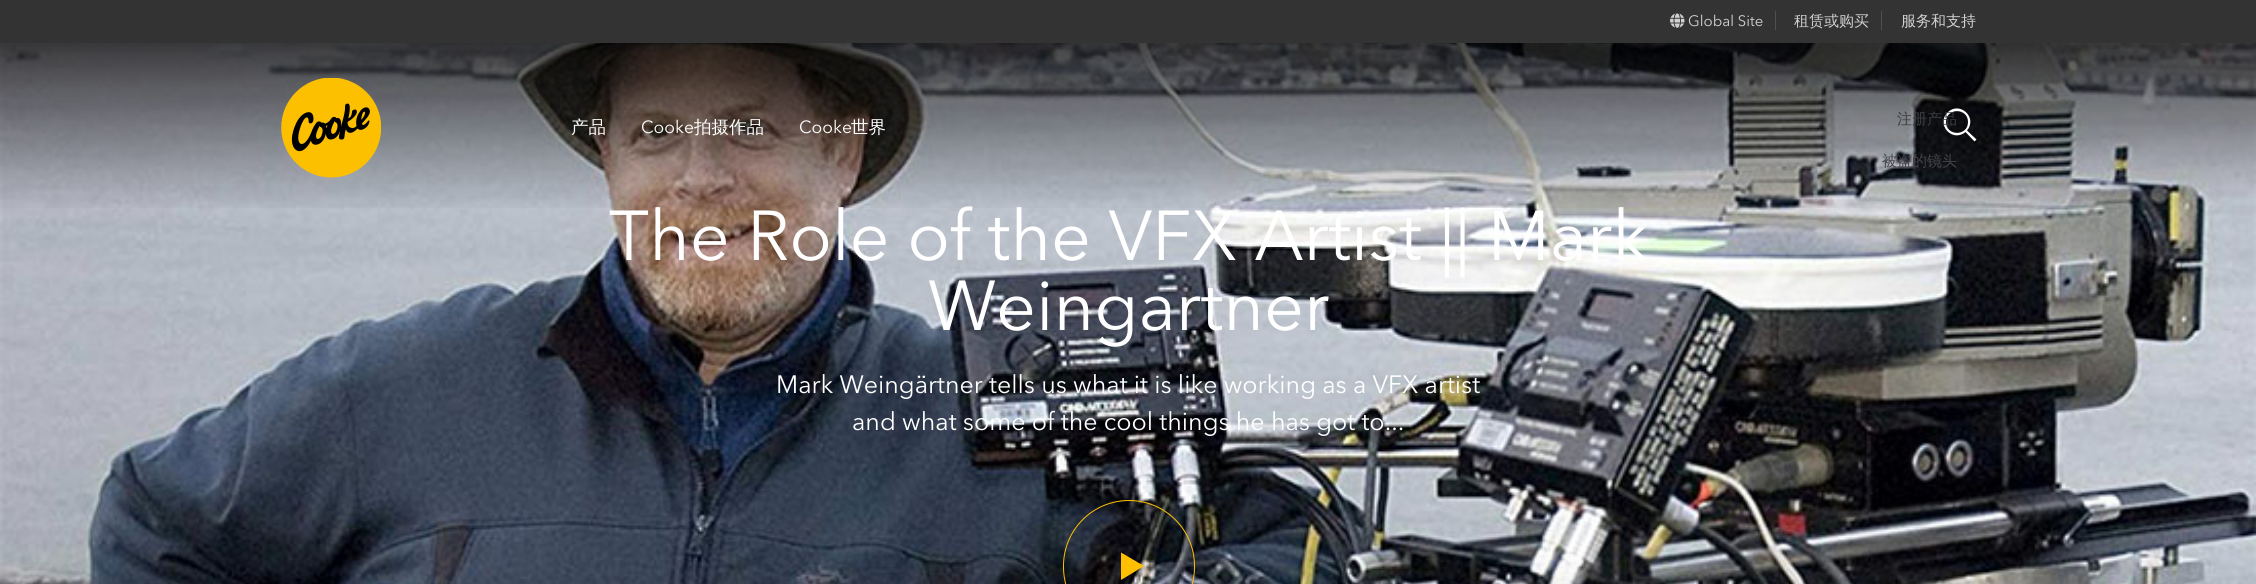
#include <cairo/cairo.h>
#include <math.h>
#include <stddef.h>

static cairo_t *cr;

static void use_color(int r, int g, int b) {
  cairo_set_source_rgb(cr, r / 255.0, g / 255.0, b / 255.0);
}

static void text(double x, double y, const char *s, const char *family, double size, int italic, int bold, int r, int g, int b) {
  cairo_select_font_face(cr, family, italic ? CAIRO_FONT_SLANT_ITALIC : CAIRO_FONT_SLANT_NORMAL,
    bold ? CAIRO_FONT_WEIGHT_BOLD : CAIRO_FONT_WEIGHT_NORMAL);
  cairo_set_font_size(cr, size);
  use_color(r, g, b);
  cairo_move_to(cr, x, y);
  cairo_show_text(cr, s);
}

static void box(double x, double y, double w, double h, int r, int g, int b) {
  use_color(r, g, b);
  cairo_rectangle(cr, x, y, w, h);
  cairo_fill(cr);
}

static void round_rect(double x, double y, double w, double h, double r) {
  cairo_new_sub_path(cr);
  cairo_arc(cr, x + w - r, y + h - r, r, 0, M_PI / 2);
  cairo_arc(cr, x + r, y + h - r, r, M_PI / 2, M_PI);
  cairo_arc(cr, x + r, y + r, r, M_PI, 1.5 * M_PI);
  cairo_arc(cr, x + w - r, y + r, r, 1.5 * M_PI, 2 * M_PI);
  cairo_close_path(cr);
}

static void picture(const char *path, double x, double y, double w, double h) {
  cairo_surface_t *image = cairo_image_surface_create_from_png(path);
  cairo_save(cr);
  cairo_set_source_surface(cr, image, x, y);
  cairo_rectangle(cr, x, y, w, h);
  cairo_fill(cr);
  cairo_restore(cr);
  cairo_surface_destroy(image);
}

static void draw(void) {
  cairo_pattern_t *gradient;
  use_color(255, 255, 255);
  cairo_paint(cr);
  box(0, 0, 2256, 43, 51, 51, 51);
  box(1775, 11, 1, 19, 79, 79, 79);
  picture("img_02.png", 1670, 13, 15, 15);
  box(1881, 11, 1, 19, 79, 79, 79);
  picture("img_03.png", 0, 43, 2256, 541);
  round_rect(1063.5, 500.5, 131, 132, 65.5);
  use_color(255, 192, 1);
  cairo_set_line_width(cr, 1);
  cairo_stroke(cr);
  cairo_new_path(cr);
  cairo_move_to(cr, 1121, 580);
  cairo_line_to(cr, 1121, 552.5);
  cairo_line_to(cr, 1144, 566);
  cairo_close_path(cr);
  cairo_fill(cr);
  text(1688, 26, "Global Site", "Avenir Next", 15, 0, 0, 209, 209, 209);
  text(1794, 26, "租赁或购买", "WenQuanYi Zen Hei Medium", 15, 0, 0, 209, 209, 209);
  text(1901, 26, "服务和支持", "WenQuanYi Zen Hei Medium", 15, 0, 0, 209, 209, 209);
  text(609, 260, "The Role of the VFX Artist || Mark", "Avenir Next", 70, 0, 0, 255, 255, 255);
  gradient = cairo_pattern_create_linear(1128, 0, 1128, 213);
  cairo_pattern_add_color_stop_rgba(gradient, 0.16, 0, 0, 0, 0.75);
  cairo_pattern_add_color_stop_rgba(gradient, 1, 0, 0, 0, 0);
  cairo_set_source(cr, gradient);
  cairo_pattern_destroy(gradient);
  cairo_rectangle(cr, 0, 43, 2256, 165);
  cairo_fill(cr);
  text(1882, 166, "被盗的镜头", "WenQuanYi Zen Hei Medium", 15, 0, 0, 67, 68, 74);
  use_color(255, 255, 255);
  cairo_new_path(cr);
  cairo_move_to(cr, 1976.5, 139.5);
  cairo_line_to(cr, 1967, 130.5);
  cairo_curve_to(cr, 1978, 117.5, 1959.5, 100.5, 1947.5, 112.5);
  cairo_curve_to(cr, 1935.5, 124.5, 1952.5, 143, 1965.5, 132);
  cairo_line_to(cr, 1974.5, 141.5);
  cairo_close_path(cr);
  cairo_move_to(cr, 1946, 122);
  cairo_curve_to(cr, 1946, 107.5, 1968, 107.5, 1968, 122);
  cairo_curve_to(cr, 1968, 136.5, 1946, 136.5, 1946, 122);
  cairo_close_path(cr);
  cairo_fill(cr);
  text(1897, 124, "注册产品", "WenQuanYi Zen Hei Medium", 15, 0, 0, 59, 60, 64);
  text(851, 133, "世界", "WenQuanYi Zen Hei Medium", 17.5, 0, 0, 255, 255, 255);
  text(799, 133, "Cooke", "Avenir Next", 17.5, 0, 0, 255, 255, 255);
  text(694, 133, "拍摄作品", "WenQuanYi Zen Hei Medium", 17.5, 0, 0, 255, 255, 255);
  text(641, 133, "Cooke", "Avenir Next", 17.5, 0, 0, 255, 255, 255);
  text(571, 133, "产品", "WenQuanYi Zen Hei Medium", 17.5, 0, 0, 255, 255, 255);
  picture("img_01.png", 281, 78, 100, 100);
  text(928, 330, "Weingartner", "Avenir Next", 70, 0, 0, 255, 255, 255);
  text(776, 393, "Mark Weingärtner tells us what it is like working as a VFX artist", "Avenir Next", 25, 0, 0, 255, 255, 255);
  text(852, 430, "and what some of the cool things he has got to...", "Avenir Next", 25, 0, 0, 255, 255, 255);
}

int main(void) {
  cairo_surface_t *surface = cairo_image_surface_create(CAIRO_FORMAT_RGB24, 2256, 584);
  cr = cairo_create(surface);
  cairo_font_options_t *options = cairo_font_options_create();
  cairo_font_options_set_hint_metrics(options, CAIRO_HINT_METRICS_OFF);
  cairo_font_options_set_hint_style(options, CAIRO_HINT_STYLE_NONE);
  cairo_set_font_options(cr, options);
  cairo_set_miter_limit(cr, 4);
  draw();
  cairo_surface_write_to_png(surface, "out.png");
  cairo_font_options_destroy(options);
  cairo_destroy(cr);
  cairo_surface_destroy(surface);
  return 0;
}
